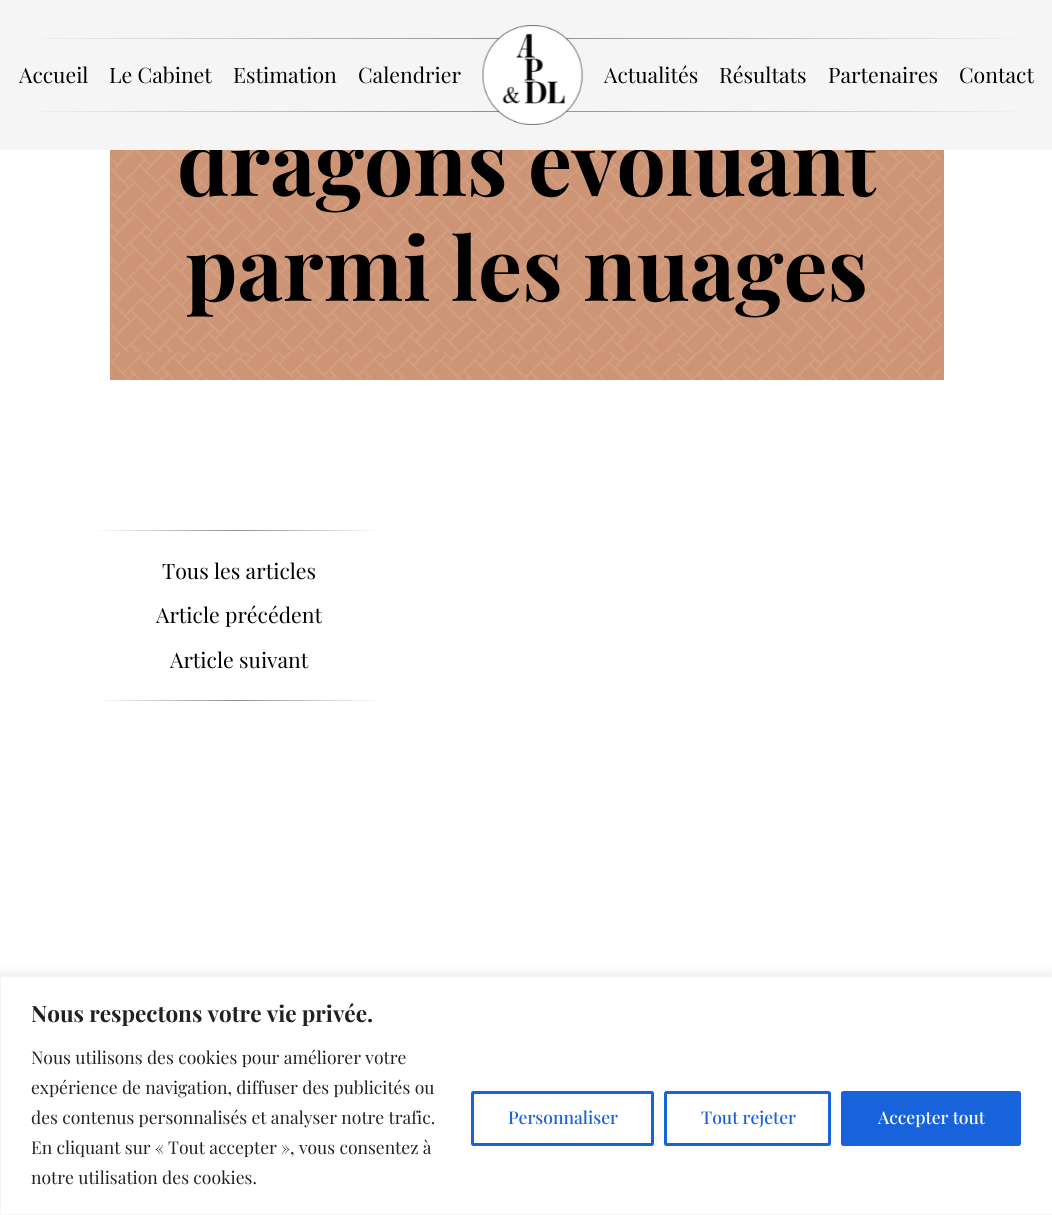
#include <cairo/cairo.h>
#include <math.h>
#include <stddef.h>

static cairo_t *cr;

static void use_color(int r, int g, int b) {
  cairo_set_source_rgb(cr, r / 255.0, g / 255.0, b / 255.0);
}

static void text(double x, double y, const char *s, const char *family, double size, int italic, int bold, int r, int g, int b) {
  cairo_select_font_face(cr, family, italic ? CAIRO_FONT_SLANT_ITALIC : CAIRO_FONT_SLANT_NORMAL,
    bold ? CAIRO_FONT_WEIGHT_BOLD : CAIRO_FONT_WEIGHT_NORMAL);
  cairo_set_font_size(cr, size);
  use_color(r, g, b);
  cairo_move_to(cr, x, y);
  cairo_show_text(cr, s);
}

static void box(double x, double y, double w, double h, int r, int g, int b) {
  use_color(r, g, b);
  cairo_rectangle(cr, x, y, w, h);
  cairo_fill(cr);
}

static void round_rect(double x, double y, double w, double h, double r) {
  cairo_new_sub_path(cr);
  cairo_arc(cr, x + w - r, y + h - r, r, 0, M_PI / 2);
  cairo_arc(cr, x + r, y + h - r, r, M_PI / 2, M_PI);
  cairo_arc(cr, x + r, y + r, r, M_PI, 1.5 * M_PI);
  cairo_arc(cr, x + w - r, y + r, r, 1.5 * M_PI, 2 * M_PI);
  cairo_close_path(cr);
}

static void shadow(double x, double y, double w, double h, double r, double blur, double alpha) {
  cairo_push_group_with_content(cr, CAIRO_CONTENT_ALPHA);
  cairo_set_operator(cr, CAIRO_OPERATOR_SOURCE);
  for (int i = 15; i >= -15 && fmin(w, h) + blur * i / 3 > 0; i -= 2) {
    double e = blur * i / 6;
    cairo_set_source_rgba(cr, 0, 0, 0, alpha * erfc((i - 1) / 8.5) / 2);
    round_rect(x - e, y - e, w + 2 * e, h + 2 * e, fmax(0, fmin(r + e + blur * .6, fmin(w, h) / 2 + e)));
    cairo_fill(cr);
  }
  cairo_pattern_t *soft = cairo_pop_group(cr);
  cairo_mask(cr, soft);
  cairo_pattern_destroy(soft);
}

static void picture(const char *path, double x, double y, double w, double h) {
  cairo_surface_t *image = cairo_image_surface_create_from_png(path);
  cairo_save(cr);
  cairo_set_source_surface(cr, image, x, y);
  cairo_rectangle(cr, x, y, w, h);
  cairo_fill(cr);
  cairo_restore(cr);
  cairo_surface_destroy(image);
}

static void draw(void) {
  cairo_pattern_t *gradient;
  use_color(255, 255, 255);
  cairo_paint(cr);
  box(110, 150, 834, 230, 205, 149, 117);
  picture("img_02.png", 110, 150, 833, 230);
  gradient = cairo_pattern_create_linear(95, 531, 383, 531);
  cairo_pattern_add_color_stop_rgba(gradient, 0, 0.561, 0.561, 0.569, 1);
  cairo_pattern_add_color_stop_rgba(gradient, 0, 1, 1, 1, 1);
  cairo_pattern_add_color_stop_rgba(gradient, 0.49, 0.561, 0.561, 0.569, 1);
  cairo_pattern_add_color_stop_rgba(gradient, 1, 1, 1, 1, 1);
  cairo_set_source(cr, gradient);
  cairo_pattern_destroy(gradient);
  cairo_rectangle(cr, 95, 530, 288, 1);
  cairo_fill(cr);
  gradient = cairo_pattern_create_linear(95, 701, 383, 701);
  cairo_pattern_add_color_stop_rgba(gradient, 0, 0.561, 0.561, 0.569, 1);
  cairo_pattern_add_color_stop_rgba(gradient, 0, 1, 1, 1, 1);
  cairo_pattern_add_color_stop_rgba(gradient, 0.49, 0.561, 0.561, 0.569, 1);
  cairo_pattern_add_color_stop_rgba(gradient, 1, 1, 1, 1, 1);
  cairo_set_source(cr, gradient);
  cairo_pattern_destroy(gradient);
  cairo_rectangle(cr, 95, 700, 288, 1);
  cairo_fill(cr);
  use_color(172, 171, 171);
  shadow(0, 975, 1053, 239, 0, 6, 0.3);
  use_color(255, 255, 255);
  cairo_rectangle(cr, 0.5, 976.5, 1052, 238);
  cairo_fill_preserve(cr);
  use_color(244, 244, 244);
  cairo_set_line_width(cr, 1);
  cairo_stroke(cr);
  round_rect(472.5, 1092.5, 180, 52, 1);
  use_color(24, 99, 220);
  cairo_set_line_width(cr, 3);
  cairo_stroke(cr);
  round_rect(665.5, 1092.5, 164, 52, 1);
  cairo_stroke(cr);
  round_rect(842.5, 1092.5, 177, 52, 1);
  cairo_fill_preserve(cr);
  cairo_stroke(cr);
  text(177, 196, "dragons évoluant", "Playfair Display", 87.5, 0, 1, 0, 0, 0);
  box(0, 0, 1052, 150, 245, 245, 245);
  gradient = cairo_pattern_create_linear(19, 112, 1034, 112);
  cairo_pattern_add_color_stop_rgba(gradient, 0, 0.541, 0.541, 0.549, 1);
  cairo_pattern_add_color_stop_rgba(gradient, 0, 0.961, 0.961, 0.961, 1);
  cairo_pattern_add_color_stop_rgba(gradient, 0.49, 0.541, 0.541, 0.549, 1);
  cairo_pattern_add_color_stop_rgba(gradient, 1, 0.961, 0.961, 0.961, 1);
  cairo_set_source(cr, gradient);
  cairo_pattern_destroy(gradient);
  cairo_rectangle(cr, 31, 111, 991, 1);
  cairo_fill(cr);
  gradient = cairo_pattern_create_linear(19, 38, 1034, 38);
  cairo_pattern_add_color_stop_rgba(gradient, 0, 0.541, 0.541, 0.549, 1);
  cairo_pattern_add_color_stop_rgba(gradient, 0, 0.961, 0.961, 0.961, 1);
  cairo_pattern_add_color_stop_rgba(gradient, 0.49, 0.541, 0.541, 0.549, 1);
  cairo_pattern_add_color_stop_rgba(gradient, 1, 0.961, 0.961, 0.961, 1);
  cairo_set_source(cr, gradient);
  cairo_pattern_destroy(gradient);
  cairo_rectangle(cr, 31, 38, 991, 1);
  cairo_fill(cr);
  picture("img_01.png", 482, 25, 101, 100);
  text(959, 83, "Contact", "Playfair Display", 21.25, 0, 0, 0, 0, 0);
  text(828, 83, "Partenaires", "Playfair Display", 21.25, 0, 0, 0, 0, 0);
  text(719, 83, "Résultats", "Playfair Display", 21.25, 0, 0, 0, 0, 0);
  text(604, 83, "Actualités", "Playfair Display", 21.25, 0, 0, 0, 0, 0);
  text(358, 83, "Calendrier", "Playfair Display", 21.25, 0, 0, 0, 0, 0);
  text(233, 83, "Estimation", "Playfair Display", 21.25, 0, 0, 0, 0, 0);
  text(109, 83, "Le Cabinet", "Playfair Display", 21.25, 0, 0, 0, 0, 0);
  text(19, 83, "Accueil", "Playfair Display", 21.25, 0, 0, 0, 0, 0);
  text(185, 301, "parmi les nuages", "Playfair Display", 87.5, 0, 1, 0, 0, 0);
  text(162, 579, "Tous les articles", "Playfair Display", 21.25, 0, 0, 0, 0, 0);
  text(156, 623, "Article précédent", "Playfair Display", 21.25, 0, 0, 0, 0, 0);
  text(170, 668, "Article suivant", "Playfair Display", 21.25, 0, 0, 0, 0, 0);
  text(31, 1022, "Nous respectons votre vie privée.", "Playfair Display", 22.5, 0, 1, 33, 33, 33);
  text(31, 1064, "Nous utilisons des cookies pour améliorer votre", "Playfair Display", 17.5, 0, 0, 33, 33, 33);
  text(31, 1094, "expérience de navigation, diffuser des publicités ou", "Playfair Display", 17.5, 0, 0, 33, 33, 33);
  text(31, 1124, "des contenus personnalisés et analyser notre trafic.", "Playfair Display", 17.5, 0, 0, 33, 33, 33);
  text(31, 1154, "En cliquant sur « Tout accepter », vous consentez à", "Playfair Display", 17.5, 0, 0, 33, 33, 33);
  text(31, 1184, "notre utilisation des cookies.", "Playfair Display", 17.5, 0, 0, 33, 33, 33);
  text(508, 1124, "Personnaliser", "Playfair Display Medium", 17.5, 0, 0, 24, 99, 220);
  text(701, 1124, "Tout rejeter", "Playfair Display Medium", 17.5, 0, 0, 24, 99, 220);
  text(878, 1124, "Accepter tout", "Playfair Display Medium", 17.5, 0, 0, 255, 255, 255);
}

int main(void) {
  cairo_surface_t *surface = cairo_image_surface_create(CAIRO_FORMAT_RGB24, 1052, 1215);
  cr = cairo_create(surface);
  cairo_font_options_t *options = cairo_font_options_create();
  cairo_font_options_set_hint_metrics(options, CAIRO_HINT_METRICS_OFF);
  cairo_font_options_set_hint_style(options, CAIRO_HINT_STYLE_NONE);
  cairo_set_font_options(cr, options);
  cairo_set_miter_limit(cr, 4);
  draw();
  cairo_surface_write_to_png(surface, "out.png");
  cairo_font_options_destroy(options);
  cairo_destroy(cr);
  cairo_surface_destroy(surface);
  return 0;
}
